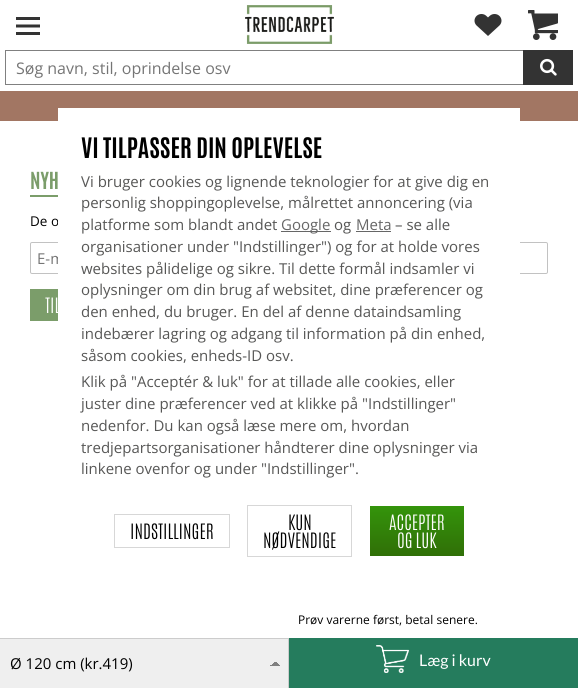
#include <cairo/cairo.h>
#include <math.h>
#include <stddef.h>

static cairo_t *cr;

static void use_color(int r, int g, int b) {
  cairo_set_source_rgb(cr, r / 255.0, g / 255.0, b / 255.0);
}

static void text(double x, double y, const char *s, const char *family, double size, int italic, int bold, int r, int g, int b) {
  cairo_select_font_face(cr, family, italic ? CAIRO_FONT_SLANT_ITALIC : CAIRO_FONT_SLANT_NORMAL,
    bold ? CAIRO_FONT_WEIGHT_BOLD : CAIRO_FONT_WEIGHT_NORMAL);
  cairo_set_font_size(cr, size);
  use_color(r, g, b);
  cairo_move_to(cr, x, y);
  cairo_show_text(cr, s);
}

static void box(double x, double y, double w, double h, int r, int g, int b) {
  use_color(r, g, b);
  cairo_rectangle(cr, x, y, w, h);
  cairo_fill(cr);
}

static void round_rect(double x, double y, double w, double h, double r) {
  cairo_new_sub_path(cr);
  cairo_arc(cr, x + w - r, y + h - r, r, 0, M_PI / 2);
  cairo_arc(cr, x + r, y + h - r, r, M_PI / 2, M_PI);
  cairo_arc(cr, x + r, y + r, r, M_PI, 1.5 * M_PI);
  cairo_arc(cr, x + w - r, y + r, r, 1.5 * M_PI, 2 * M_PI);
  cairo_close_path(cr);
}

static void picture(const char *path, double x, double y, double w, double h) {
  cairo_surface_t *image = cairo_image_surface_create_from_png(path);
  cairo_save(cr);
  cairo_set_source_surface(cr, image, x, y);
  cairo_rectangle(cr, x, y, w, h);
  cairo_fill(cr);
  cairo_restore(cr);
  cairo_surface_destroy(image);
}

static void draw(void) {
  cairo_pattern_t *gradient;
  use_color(255, 255, 255);
  cairo_paint(cr);
  picture("img_01.png", 16, 17, 24, 18);
  picture("img_02.png", 245, 5, 89, 39);
  picture("img_03.png", 474, 14, 28, 22);
  picture("img_04.png", 528, 10, 30, 30);
  box(5, 50, 518, 1, 128, 128, 128);
  box(5, 84, 518, 1, 128, 128, 128);
  box(5, 50, 1, 35, 128, 128, 128);
  box(523, 50, 50, 35, 51, 51, 51);
  picture("img_05.png", 540, 58, 17, 18);
  box(0, 91, 578, 30, 162, 118, 99);
  cairo_rectangle(cr, 114.5, 514.5, 115, 33);
  use_color(215, 215, 215);
  cairo_set_line_width(cr, 1);
  cairo_stroke(cr);
  cairo_rectangle(cr, 247.5, 505.5, 104, 51);
  cairo_stroke(cr);
  gradient = cairo_pattern_create_linear(417, 506, 417, 556);
  cairo_pattern_add_color_stop_rgba(gradient, 0, 0.204, 0.58, 0.043, 1);
  cairo_pattern_add_color_stop_rgba(gradient, 1, 0.188, 0.435, 0.027, 1);
  cairo_set_source(cr, gradient);
  cairo_pattern_destroy(gradient);
  cairo_rectangle(cr, 370, 506, 94, 50);
  cairo_fill(cr);
  box(30, 195, 28, 2, 123, 157, 106);
  round_rect(30.5, 242.5, 517, 31, 1.5);
  use_color(194, 194, 194);
  cairo_stroke(cr);
  box(30, 289, 28, 32, 123, 157, 106);
  box(0, 639, 288, 49, 239, 239, 239);
  gradient = cairo_pattern_create_linear(270, 661, 275, 666);
  cairo_pattern_add_color_stop_rgba(gradient, 0.5, 0.937, 0.937, 0.937, 1);
  cairo_pattern_add_color_stop_rgba(gradient, 0.5, 0.502, 0.502, 0.502, 1);
  cairo_set_source(cr, gradient);
  cairo_pattern_destroy(gradient);
  cairo_rectangle(cr, 270, 662, 5, 4);
  cairo_fill(cr);
  gradient = cairo_pattern_create_linear(275, 666, 280, 661);
  cairo_pattern_add_color_stop_rgba(gradient, 0.5, 0.502, 0.502, 0.502, 1);
  cairo_pattern_add_color_stop_rgba(gradient, 0.5, 0.937, 0.937, 0.937, 1);
  cairo_set_source(cr, gradient);
  cairo_pattern_destroy(gradient);
  cairo_rectangle(cr, 275, 662, 5, 4);
  cairo_fill(cr);
  box(0, 638, 289, 1, 204, 204, 204);
  box(288, 638, 1, 50, 204, 204, 204);
  box(289, 638, 289, 50, 37, 124, 93);
  picture("img_06.png", 376, 645, 34, 28);
  text(16, 74, "Søg navn, stil, oprindelse osv", "Open Sans", 16, 0, 0, 117, 117, 117);
  text(81, 295, "oplysninger om din brug af websitet, dine præferencer og", "Open Sans", 15, 0, 0, 87, 87, 86);
  text(81, 317, "den enhed, du bruger. En del af denne dataindsamling", "Open Sans", 15, 0, 0, 87, 87, 86);
  text(81, 339, "indebærer lagring og adgang til information på din enhed,", "Open Sans", 15, 0, 0, 87, 87, 86);
  text(81, 361, "såsom cookies, enheds-ID osv.", "Open Sans", 15, 0, 0, 87, 87, 86);
  text(81, 387, "Klik på \"Acceptér & luk\" for at tillade alle cookies, eller", "Open Sans", 15, 0, 0, 87, 87, 86);
  text(81, 409, "juster dine præferencer ved at klikke på \"Indstillinger\"", "Open Sans", 15, 0, 0, 87, 87, 86);
  text(81, 431, "nedenfor. Du kan også læse mere om, hvordan", "Open Sans", 15, 0, 0, 87, 87, 86);
  text(81, 453, "tredjepartsorganisationer håndterer dine oplysninger via", "Open Sans", 15, 0, 0, 87, 87, 86);
  text(81, 474, "linkene ovenfor og under \"Indstillinger\".", "Open Sans", 15, 0, 0, 87, 87, 86);
  text(130, 539, "INDSTILLINGER", "Antonio Light", 18, 0, 0, 0, 0, 0);
  text(288, 530, "KUN", "Antonio Light", 18, 0, 0, 0, 0, 0);
  text(263, 548, "NØDVENDIGE", "Antonio Light", 18, 0, 0, 0, 0, 0);
  text(389, 530, "ACCEPTER", "Antonio Light", 18, 0, 0, 255, 255, 255);
  text(397, 548, "OG LUK", "Antonio Light", 18, 0, 0, 255, 255, 255);
  text(30, 189, "NYH", "Antonio", 20, 0, 1, 123, 157, 106);
  text(30, 226, "De o", "Open Sans", 13.5, 0, 0, 0, 0, 0);
  text(37, 264, "E-m", "Open Sans", 15, 0, 0, 117, 117, 117);
  box(58, 108, 462, 166, 255, 255, 255);
  text(81, 274, "websites pålidelige og sikre. Til dette formål indsamler vi", "Open Sans", 15, 0, 0, 87, 87, 86);
  text(81, 252, "organisationer under \"Indstillinger\") og for at holde vores", "Open Sans", 15, 0, 0, 87, 87, 86);
  text(395, 230, "– se alle", "Open Sans", 15, 0, 0, 87, 87, 86);
  text(356, 230, "Meta", "Open Sans", 15, 0, 0, 102, 102, 102);
  box(356, 231, 35, 1, 102, 102, 102);
  text(334, 230, "og", "Open Sans", 15, 0, 0, 87, 87, 86);
  box(281, 231, 50, 1, 102, 102, 102);
  text(281, 230, "Google", "Open Sans", 15, 0, 0, 102, 102, 102);
  text(81, 230, "platforme som blandt andet", "Open Sans", 15, 0, 0, 87, 87, 86);
  text(81, 208, "personlig shoppingoplevelse, målrettet annoncering (via", "Open Sans", 15, 0, 0, 87, 87, 86);
  text(81, 187, "Vi bruger cookies og lignende teknologier for at give dig en", "Open Sans", 15, 0, 0, 87, 87, 86);
  text(81, 158, "VI TILPASSER DIN OPLEVELSE", "Antonio", 24, 0, 1, 0, 0, 0);
  text(45, 313, "TIL", "Antonio Light", 18, 0, 0, 255, 255, 255);
  text(298, 624, "Prøv varerne først, betal senere.", "Open Sans", 12, 0, 0, 0, 0, 0);
  text(10, 669, "Ø 120 cm (kr.419)", "Open Sans", 15, 0, 0, 0, 0, 0);
  text(419, 666, "Læg i kurv", "Lato", 16, 0, 0, 255, 255, 255);
}

int main(void) {
  cairo_surface_t *surface = cairo_image_surface_create(CAIRO_FORMAT_RGB24, 578, 688);
  cr = cairo_create(surface);
  cairo_font_options_t *options = cairo_font_options_create();
  cairo_font_options_set_hint_metrics(options, CAIRO_HINT_METRICS_OFF);
  cairo_font_options_set_hint_style(options, CAIRO_HINT_STYLE_NONE);
  cairo_set_font_options(cr, options);
  cairo_set_miter_limit(cr, 4);
  draw();
  cairo_surface_write_to_png(surface, "out.png");
  cairo_font_options_destroy(options);
  cairo_destroy(cr);
  cairo_surface_destroy(surface);
  return 0;
}
